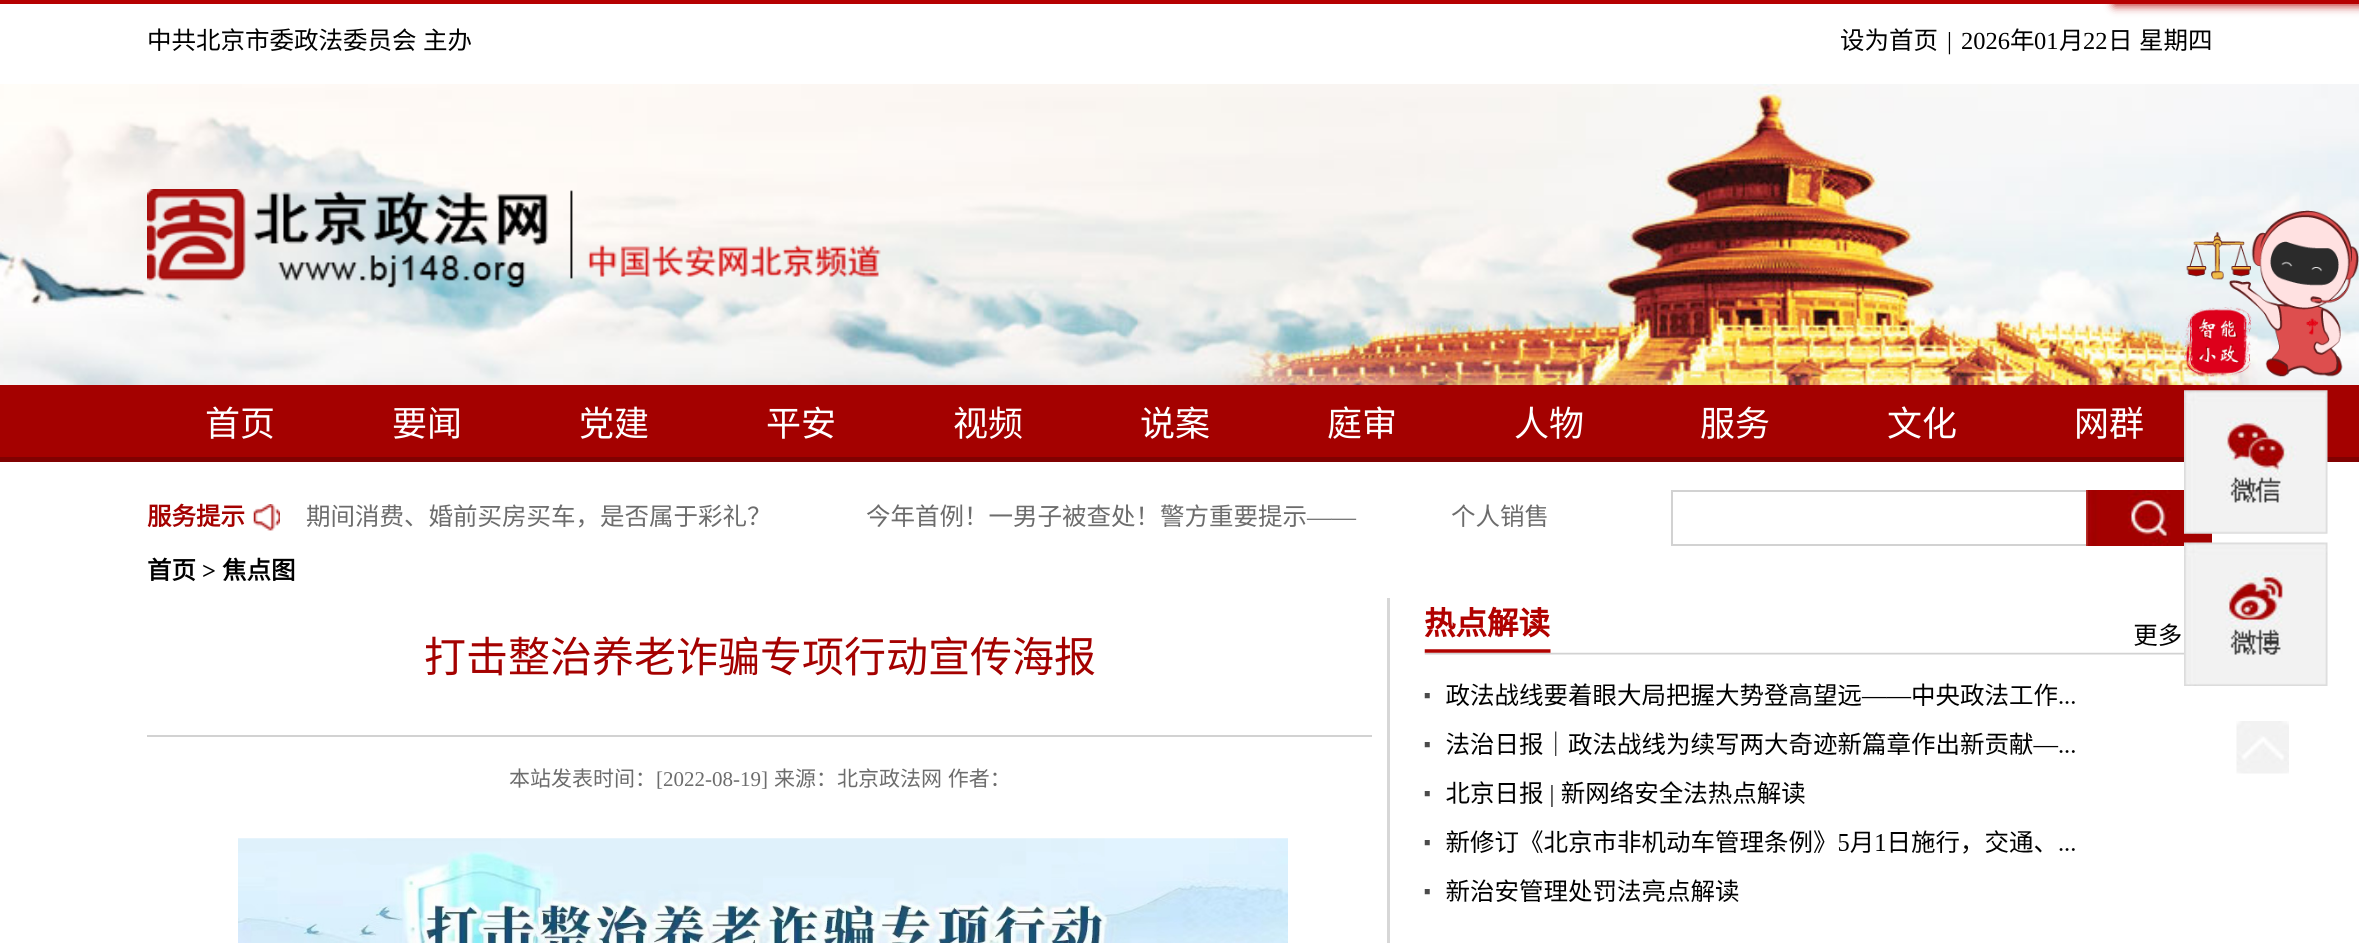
#include <cairo/cairo.h>
#include <math.h>
#include <stddef.h>

static cairo_t *cr;

static void use_color(int r, int g, int b) {
  cairo_set_source_rgb(cr, r / 255.0, g / 255.0, b / 255.0);
}

static void text(double x, double y, const char *s, const char *family, double size, int italic, int bold, int r, int g, int b) {
  cairo_select_font_face(cr, family, italic ? CAIRO_FONT_SLANT_ITALIC : CAIRO_FONT_SLANT_NORMAL,
    bold ? CAIRO_FONT_WEIGHT_BOLD : CAIRO_FONT_WEIGHT_NORMAL);
  cairo_set_font_size(cr, size);
  use_color(r, g, b);
  cairo_move_to(cr, x, y);
  cairo_show_text(cr, s);
}

static void spaced_text(double x, double y, const char *s, double letter, double word) {
  cairo_move_to(cr, x, y);
  while (*s) {
    char ch[5] = {0};
    int n = 0;
    do ch[n++] = *s++; while ((*s & 0xC0) == 0x80);
    cairo_show_text(cr, ch);
    cairo_rel_move_to(cr, letter + word * (*ch == ' '), 0);
  }
}

static void box(double x, double y, double w, double h, int r, int g, int b) {
  use_color(r, g, b);
  cairo_rectangle(cr, x, y, w, h);
  cairo_fill(cr);
}

static void round_rect(double x, double y, double w, double h, double r) {
  cairo_new_sub_path(cr);
  cairo_arc(cr, x + w - r, y + h - r, r, 0, M_PI / 2);
  cairo_arc(cr, x + r, y + h - r, r, M_PI / 2, M_PI);
  cairo_arc(cr, x + r, y + r, r, M_PI, 1.5 * M_PI);
  cairo_arc(cr, x + w - r, y + r, r, 1.5 * M_PI, 2 * M_PI);
  cairo_close_path(cr);
}

static void shadow(double x, double y, double w, double h, double r, double blur, double alpha) {
  cairo_push_group_with_content(cr, CAIRO_CONTENT_ALPHA);
  cairo_set_operator(cr, CAIRO_OPERATOR_SOURCE);
  for (int i = 15; i >= -15 && fmin(w, h) + blur * i / 3 > 0; i -= 2) {
    double e = blur * i / 6;
    cairo_set_source_rgba(cr, 0, 0, 0, alpha * erfc((i - 1) / 8.5) / 2);
    round_rect(x - e, y - e, w + 2 * e, h + 2 * e, fmax(0, fmin(r + e + blur * .6, fmin(w, h) / 2 + e)));
    cairo_fill(cr);
  }
  cairo_pattern_t *soft = cairo_pop_group(cr);
  cairo_mask(cr, soft);
  cairo_pattern_destroy(soft);
}

static void picture(const char *path, double x, double y, double w, double h) {
  cairo_surface_t *image = cairo_image_surface_create_from_png(path);
  cairo_save(cr);
  cairo_set_source_surface(cr, image, x, y);
  cairo_rectangle(cr, x, y, w, h);
  cairo_fill(cr);
  cairo_restore(cr);
  cairo_surface_destroy(image);
}

static void draw(void) {
  use_color(255, 255, 255);
  cairo_paint(cr);
  box(0, 0, 2359, 4, 182, 0, 1);
  cairo_save(cr);
  cairo_set_fill_rule(cr, CAIRO_FILL_RULE_EVEN_ODD);
  cairo_new_path(cr);
  cairo_move_to(cr, 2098, 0);
  cairo_line_to(cr, 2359, 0);
  cairo_line_to(cr, 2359, 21);
  cairo_line_to(cr, 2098, 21);
  cairo_close_path(cr);
  cairo_move_to(cr, 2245, 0);
  cairo_curve_to(cr, 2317.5, 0, 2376.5, 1, 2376.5, 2);
  cairo_curve_to(cr, 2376.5, 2.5, 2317.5, 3.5, 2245, 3.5);
  cairo_curve_to(cr, 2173, 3.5, 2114, 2.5, 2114, 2);
  cairo_curve_to(cr, 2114, 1, 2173, 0, 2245, 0);
  cairo_close_path(cr);
  cairo_clip(cr);
  use_color(182, 0, 1);
  shadow(2114, -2, 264, 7, 3.5, 5, 1);
  cairo_restore(cr);
  picture("img_01.png", 0, 84, 2359, 301);
  picture("img_02.png", 147, 189, 734, 99);
  box(0, 385, 2359, 72, 164, 1, 0);
  box(0, 457, 2359, 5, 129, 1, 1);
  picture("img_03.png", 2184, 210, 175, 167);
  picture("img_08.png", 2086, 490, 126, 56);
  picture("img_04.png", 2184, 390, 144, 144);
  picture("img_05.png", 2184, 542, 144, 144);
  picture("img_06.png", 2236, 721, 53, 53);
  picture("img_07.png", 253, 504, 27, 27);
  box(1671, 490, 415, 2, 210, 210, 210);
  box(1671, 544, 415, 2, 210, 210, 210);
  box(1671, 490, 2, 56, 210, 210, 210);
  box(1387, 598, 3, 345, 215, 215, 215);
  box(147, 735, 1225, 2, 210, 210, 210);
  picture("img_09.png", 238, 838, 1050, 105);
  picture("img_10.png", 1424, 606, 760, 296);
  cairo_select_font_face(cr, "Noto Sans CJK SC", CAIRO_FONT_SLANT_NORMAL, CAIRO_FONT_WEIGHT_NORMAL);
  cairo_set_font_size(cr, 24.5);
  use_color(0, 0, 0);
  spaced_text(147, 49, "中共北京市委政法委员会 主办", 0, 1);
  text(1840, 49, "设为首页", "Noto Sans CJK SC", 24.5, 0, 0, 0, 0, 0);
  text(1947, 49, "|", "Liberation Serif", 24.5, 0, 0, 0, 0, 0);
  text(1961, 49, "2026", "Liberation Serif", 24.5, 0, 0, 0, 0, 0);
  text(2010, 49, "年", "Noto Sans CJK SC", 24.5, 0, 0, 0, 0, 0);
  text(2034, 49, "01", "Liberation Serif", 24.5, 0, 0, 0, 0, 0);
  text(2059, 49, "月", "Noto Sans CJK SC", 24.5, 0, 0, 0, 0, 0);
  text(2083, 49, "22", "Liberation Serif", 24.5, 0, 0, 0, 0, 0);
  text(2108, 49, "日", "Noto Sans CJK SC", 24.5, 0, 0, 0, 0, 0);
  text(2139, 49, "星期四", "Noto Sans CJK SC", 24.5, 0, 0, 0, 0, 0);
  text(205, 436, "首页", "Noto Sans CJK SC", 35, 0, 0, 255, 255, 255);
  text(392, 436, "要闻", "Noto Sans CJK SC", 35, 0, 0, 255, 255, 255);
  text(579, 436, "党建", "Noto Sans CJK SC", 35, 0, 0, 255, 255, 255);
  text(766, 436, "平安", "Noto Sans CJK SC", 35, 0, 0, 255, 255, 255);
  text(953, 436, "视频", "Noto Sans CJK SC", 35, 0, 0, 255, 255, 255);
  text(1140, 436, "说案", "Noto Sans CJK SC", 35, 0, 0, 255, 255, 255);
  text(1327, 436, "庭审", "Noto Sans CJK SC", 35, 0, 0, 255, 255, 255);
  text(1514, 436, "人物", "Noto Sans CJK SC", 35, 0, 0, 255, 255, 255);
  text(1700, 436, "服务", "Noto Sans CJK SC", 35, 0, 0, 255, 255, 255);
  text(1887, 436, "文化", "Noto Sans CJK SC", 35, 0, 0, 255, 255, 255);
  text(2074, 436, "网群", "Noto Sans CJK SC", 35, 0, 0, 255, 255, 255);
  text(147, 525, "服务提示", "Noto Sans CJK SC", 24.5, 0, 1, 164, 1, 0);
  text(306, 525, "期间消费、婚前买房买车，是否属于彩礼？", "Noto Sans CJK SC", 24.5, 0, 0, 108, 108, 108);
  text(866, 525, "今年首例！一男子被查处！警方重要提示", "Noto Sans CJK SC", 24.5, 0, 0, 108, 108, 108);
  text(1307, 525, "——", "Liberation Serif", 24.5, 0, 0, 108, 108, 108);
  text(1451, 525, "个人销售", "Noto Sans CJK SC", 24.5, 0, 0, 108, 108, 108);
  text(147, 579, "首页", "Noto Sans CJK SC", 24.5, 0, 1, 0, 0, 0);
  text(202, 579, ">", "Liberation Serif", 24.5, 0, 1, 0, 0, 0);
  text(222, 579, "焦点图", "Noto Sans CJK SC", 24.5, 0, 1, 0, 0, 0);
  text(424, 672, "打击整治养老诈骗专项行动宣传海报", "Noto Sans CJK SC", 42, 0, 0, 164, 1, 0);
  text(509, 786, "本站发表时间：", "Noto Sans CJK SC", 21, 0, 0, 108, 108, 108);
  text(656, 786, "[2022-08-19]", "Liberation Serif", 21, 0, 0, 108, 108, 108);
  cairo_select_font_face(cr, "Noto Sans CJK SC", CAIRO_FONT_SLANT_NORMAL, CAIRO_FONT_WEIGHT_NORMAL);
  spaced_text(774, 786, "来源：北京政法网 作者：", 0, 1);
}

int main(void) {
  cairo_surface_t *surface = cairo_image_surface_create(CAIRO_FORMAT_RGB24, 2359, 943);
  cr = cairo_create(surface);
  cairo_font_options_t *options = cairo_font_options_create();
  cairo_font_options_set_hint_metrics(options, CAIRO_HINT_METRICS_OFF);
  cairo_font_options_set_hint_style(options, CAIRO_HINT_STYLE_NONE);
  cairo_set_font_options(cr, options);
  cairo_set_miter_limit(cr, 4);
  draw();
  cairo_surface_write_to_png(surface, "out.png");
  cairo_font_options_destroy(options);
  cairo_destroy(cr);
  cairo_surface_destroy(surface);
  return 0;
}
